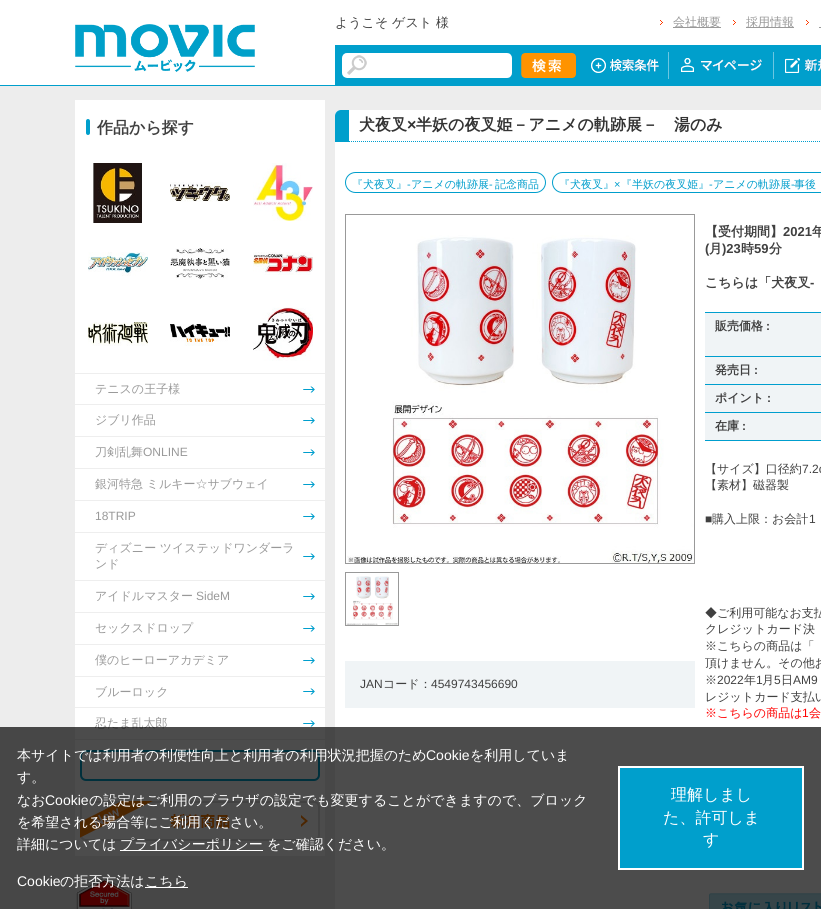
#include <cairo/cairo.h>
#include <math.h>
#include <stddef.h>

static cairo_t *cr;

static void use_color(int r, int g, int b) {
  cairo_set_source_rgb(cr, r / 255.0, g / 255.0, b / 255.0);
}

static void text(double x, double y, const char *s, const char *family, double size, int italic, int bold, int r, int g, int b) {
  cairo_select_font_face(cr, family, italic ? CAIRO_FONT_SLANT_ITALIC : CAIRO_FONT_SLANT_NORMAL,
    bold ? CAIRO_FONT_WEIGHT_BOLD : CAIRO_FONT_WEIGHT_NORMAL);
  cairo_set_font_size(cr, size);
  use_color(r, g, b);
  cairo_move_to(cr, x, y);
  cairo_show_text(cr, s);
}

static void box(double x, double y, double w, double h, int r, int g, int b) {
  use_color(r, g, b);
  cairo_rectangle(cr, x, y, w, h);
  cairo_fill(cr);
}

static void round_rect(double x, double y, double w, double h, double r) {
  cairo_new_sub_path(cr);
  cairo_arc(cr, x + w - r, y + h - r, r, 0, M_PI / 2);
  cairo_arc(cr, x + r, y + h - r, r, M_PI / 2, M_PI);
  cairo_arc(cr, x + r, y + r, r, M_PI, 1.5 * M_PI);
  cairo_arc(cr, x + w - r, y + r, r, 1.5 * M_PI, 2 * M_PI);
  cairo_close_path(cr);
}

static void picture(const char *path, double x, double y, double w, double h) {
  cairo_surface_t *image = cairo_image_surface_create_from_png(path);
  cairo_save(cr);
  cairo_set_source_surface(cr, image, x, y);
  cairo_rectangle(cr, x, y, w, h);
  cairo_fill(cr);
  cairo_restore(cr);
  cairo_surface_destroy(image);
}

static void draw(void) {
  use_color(237, 237, 237);
  cairo_paint(cr);
  box(0, 0, 821, 85, 255, 255, 255);
  box(0, 85, 821, 1, 0, 159, 204);
  picture("img_01.png", 75, 24, 180, 48);
  picture("img_02.png", 660, 20, 3, 5);
  box(673, 27, 48, 1, 153, 153, 153);
  picture("img_02.png", 733, 20, 3, 5);
  box(746, 27, 48, 1, 153, 153, 153);
  picture("img_02.png", 806, 20, 3, 5);
  box(819, 27, 2, 1, 153, 153, 153);
  box(335, 45, 486, 40, 0, 159, 204);
  picture("img_03.png", 342, 53, 170, 25);
  picture("img_04.png", 521, 53, 55, 25);
  picture("img_05.png", 591, 58, 68, 15);
  box(668, 52, 1, 27, 107, 198, 225);
  picture("img_06.png", 681, 58, 81, 14);
  box(773, 52, 1, 27, 107, 198, 225);
  picture("img_07.png", 785, 58, 36, 15);
  box(75, 100, 250, 756, 255, 255, 255);
  use_color(0, 159, 204);
  round_rect(86, 119, 4, 16, 2);
  cairo_fill(cr);
  picture("img_08.png", 93, 163, 49, 60);
  picture("img_09.png", 170, 182, 60, 20);
  picture("img_10.png", 253, 163, 60, 58);
  picture("img_11.png", 88, 252, 60, 24);
  picture("img_12.png", 170, 248, 60, 32);
  picture("img_13.png", 253, 252, 60, 23);
  picture("img_14.png", 88, 322, 60, 24);
  picture("img_15.png", 170, 324, 60, 22);
  picture("img_16.png", 253, 307, 60, 54);
  box(75, 373, 250, 1, 238, 238, 238);
  box(75, 404, 250, 1, 238, 238, 238);
  picture("img_17.png", 303, 386, 12, 7);
  box(75, 436, 250, 1, 238, 238, 238);
  picture("img_17.png", 303, 417, 12, 7);
  box(75, 468, 250, 1, 238, 238, 238);
  picture("img_17.png", 303, 449, 12, 7);
  box(75, 500, 250, 1, 238, 238, 238);
  picture("img_17.png", 303, 481, 12, 7);
  box(75, 532, 250, 1, 238, 238, 238);
  picture("img_17.png", 303, 513, 12, 7);
  box(75, 580, 250, 1, 238, 238, 238);
  picture("img_17.png", 303, 553, 12, 7);
  box(75, 612, 250, 1, 238, 238, 238);
  picture("img_17.png", 303, 593, 12, 7);
  box(75, 644, 250, 1, 238, 238, 238);
  picture("img_17.png", 303, 625, 12, 7);
  box(75, 676, 250, 1, 238, 238, 238);
  picture("img_17.png", 303, 657, 12, 7);
  box(75, 707, 250, 1, 238, 238, 238);
  picture("img_17.png", 303, 688, 12, 7);
  box(75, 739, 250, 1, 238, 238, 238);
  picture("img_17.png", 303, 720, 12, 7);
  round_rect(81, 751, 238, 29, 5);
  use_color(0, 160, 202);
  cairo_stroke(cr);
  picture("img_18.png", 80, 801, 240, 40);
  picture("img_19.png", 76, 877, 56, 32);
  box(335, 142, 486, 767, 255, 255, 255);
  box(335, 110, 14, 32, 0, 159, 204);
  picture("img_20.png", 335, 110, 6, 6);
  box(349, 110, 472, 32, 255, 255, 255);
  cairo_new_path(cr);
  cairo_move_to(cr, 349, 141.5);
  cairo_line_to(cr, 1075, 141.5);
  use_color(0, 158, 206);
  cairo_set_line_width(cr, 1);
  cairo_set_dash(cr, (double[]){1, 1}, 2, 0);
  cairo_stroke(cr);
  round_rect(345.5, 172.5, 200, 20, 10);
  use_color(0, 158, 204);
  cairo_set_dash(cr, NULL, 0, 0);
  cairo_stroke(cr);
  round_rect(552.5, 172.5, 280, 20, 10);
  cairo_stroke(cr);
  cairo_rectangle(cr, 345.5, 214.5, 349, 349);
  use_color(153, 153, 153);
  cairo_stroke(cr);
  picture("img_21.png", 347, 235, 347, 328);
  cairo_rectangle(cr, 345.5, 572.5, 53, 53);
  cairo_stroke(cr);
  picture("img_22.png", 346, 576, 52, 49);
  box(345, 661, 350, 47, 240, 244, 246);
  box(705, 312, 116, 1, 0, 158, 206);
  box(705, 313, 116, 43, 240, 244, 246);
  box(705, 356, 116, 1, 0, 158, 206);
  box(705, 357, 116, 27, 240, 244, 246);
  box(705, 384, 116, 1, 0, 158, 206);
  box(705, 385, 116, 27, 240, 244, 246);
  box(705, 412, 116, 1, 0, 158, 206);
  box(705, 413, 116, 27, 240, 244, 246);
  box(705, 440, 116, 1, 0, 158, 206);
  picture("img_23.png", 709, 893, 112, 16);
  text(335, 27, "ようこそ ゲスト 様", "WenQuanYi Zen Hei Medium", 13, 0, 0, 64, 64, 64);
  text(673, 26, "会社概要", "WenQuanYi Zen Hei Medium", 12, 0, 0, 153, 153, 153);
  text(746, 26, "採用情報", "WenQuanYi Zen Hei Medium", 12, 0, 0, 153, 153, 153);
  text(97, 133, "作品から探す", "WenQuanYi Zen Hei", 16, 0, 1, 64, 64, 64);
  text(95, 393, "テニスの王子様", "WenQuanYi Zen Hei Medium", 12, 0, 0, 153, 153, 153);
  text(95, 424, "ジブリ作品", "WenQuanYi Zen Hei Medium", 12, 0, 0, 153, 153, 153);
  text(95, 456, "刀剣乱舞", "WenQuanYi Zen Hei Medium", 12, 0, 0, 153, 153, 153);
  text(143, 456, "ONLINE", "Liberation Sans", 12, 0, 0, 153, 153, 153);
  text(95, 488, "銀河特急 ミルキー☆サブウェイ", "WenQuanYi Zen Hei Medium", 12, 0, 0, 153, 153, 153);
  text(95, 520, "18TRIP", "Liberation Sans", 12, 0, 0, 153, 153, 153);
  text(95, 552, "ディズニー ツイステッドワンダーラ", "WenQuanYi Zen Hei Medium", 12, 0, 0, 153, 153, 153);
  text(95, 568, "ンド", "WenQuanYi Zen Hei Medium", 12, 0, 0, 153, 153, 153);
  text(95, 600, "アイドルマスター", "WenQuanYi Zen Hei Medium", 12, 0, 0, 153, 153, 153);
  text(196, 600, "SideM", "Liberation Sans", 12, 0, 0, 153, 153, 153);
  text(95, 632, "セックスドロップ", "WenQuanYi Zen Hei Medium", 12, 0, 0, 153, 153, 153);
  text(95, 664, "僕のヒーローアカデミア", "WenQuanYi Zen Hei Medium", 12, 0, 0, 153, 153, 153);
  text(95, 696, "ブルーロック", "WenQuanYi Zen Hei Medium", 12, 0, 0, 153, 153, 153);
  text(95, 727, "忍たま乱太郎", "WenQuanYi Zen Hei Medium", 12, 0, 0, 153, 153, 153);
  text(359, 130, "犬夜叉", "WenQuanYi Zen Hei", 16, 0, 1, 51, 51, 51);
  text(407, 130, "×", "Liberation Sans", 16, 0, 1, 51, 51, 51);
  text(416, 130, "半妖の夜叉姫－アニメの軌跡展－　湯のみ", "WenQuanYi Zen Hei", 16, 0, 1, 51, 51, 51);
  text(352, 188, "『犬夜叉』", "WenQuanYi Zen Hei Medium", 11, 0, 0, 0, 158, 204);
  text(407, 188, "-", "Liberation Sans", 11, 0, 0, 0, 158, 204);
  text(411, 188, "アニメの軌跡展", "WenQuanYi Zen Hei Medium", 11, 0, 0, 0, 158, 204);
  text(489, 188, "-", "Liberation Sans", 11, 0, 0, 0, 158, 204);
  text(495, 188, "記念商品", "WenQuanYi Zen Hei Medium", 11, 0, 0, 0, 158, 204);
  text(559, 188, "『犬夜叉』", "WenQuanYi Zen Hei Medium", 11, 0, 0, 0, 158, 204);
  text(614, 188, "×", "Liberation Sans", 11, 0, 0, 0, 158, 204);
  text(621, 188, "『半妖の夜叉姫』", "WenQuanYi Zen Hei Medium", 11, 0, 0, 0, 158, 204);
  text(709, 188, "-", "Liberation Sans", 11, 0, 0, 0, 158, 204);
  text(713, 188, "アニメの軌跡展", "WenQuanYi Zen Hei Medium", 11, 0, 0, 0, 158, 204);
  text(791, 188, "-", "Liberation Sans", 11, 0, 0, 0, 158, 204);
  text(794, 188, "事後", "WenQuanYi Zen Hei Medium", 11, 0, 0, 0, 158, 204);
  text(360, 688, "JAN", "Liberation Sans", 12, 0, 0, 64, 64, 64);
  text(383, 688, "コード：", "WenQuanYi Zen Hei Medium", 12, 0, 0, 64, 64, 64);
  text(431, 688, "4549743456690", "Liberation Sans", 12, 0, 0, 64, 64, 64);
  text(705, 236, "【受付期間】", "WenQuanYi Zen Hei", 13, 0, 1, 64, 64, 64);
  text(783, 236, "2021", "Liberation Sans", 13, 0, 1, 64, 64, 64);
  text(812, 236, "年", "WenQuanYi Zen Hei", 13, 0, 1, 64, 64, 64);
  text(705, 253, "(", "Liberation Sans", 13, 0, 1, 64, 64, 64);
  text(709, 253, "月", "WenQuanYi Zen Hei", 13, 0, 1, 64, 64, 64);
  text(722, 253, ")23", "Liberation Sans", 13, 0, 1, 64, 64, 64);
  text(741, 253, "時", "WenQuanYi Zen Hei", 13, 0, 1, 64, 64, 64);
  text(754, 253, "59", "Liberation Sans", 13, 0, 1, 64, 64, 64);
  text(769, 253, "分", "WenQuanYi Zen Hei", 13, 0, 1, 64, 64, 64);
  text(705, 287, "こちらは「犬夜叉", "WenQuanYi Zen Hei", 13, 0, 1, 64, 64, 64);
  text(810, 287, "-", "Liberation Sans", 13, 0, 1, 64, 64, 64);
  text(715, 330, "販売価格", "WenQuanYi Zen Hei", 12, 0, 1, 64, 64, 64);
  text(766, 330, ":", "Liberation Sans", 12, 0, 1, 64, 64, 64);
  text(715, 374, "発売日", "WenQuanYi Zen Hei", 12, 0, 1, 64, 64, 64);
  text(754, 374, ":", "Liberation Sans", 12, 0, 1, 64, 64, 64);
  text(715, 402, "ポイント", "WenQuanYi Zen Hei", 12, 0, 1, 64, 64, 64);
  text(767, 402, ":", "Liberation Sans", 12, 0, 1, 64, 64, 64);
  text(715, 430, "在庫", "WenQuanYi Zen Hei", 12, 0, 1, 64, 64, 64);
  text(742, 430, ":", "Liberation Sans", 12, 0, 1, 64, 64, 64);
  text(705, 473, "【サイズ】口径約", "WenQuanYi Zen Hei Medium", 12, 0, 0, 64, 64, 64);
  text(802, 473, "7.2c", "Liberation Sans", 12, 0, 0, 64, 64, 64);
  text(705, 489, "【素材】磁器製", "WenQuanYi Zen Hei Medium", 12, 0, 0, 64, 64, 64);
  text(705, 523, "■", "Liberation Sans", 12, 0, 0, 64, 64, 64);
  text(712, 523, "購入上限：お会計", "WenQuanYi Zen Hei Medium", 12, 0, 0, 64, 64, 64);
  text(809, 523, "1", "Liberation Sans", 12, 0, 0, 64, 64, 64);
  text(705, 617, "◆ご利用可能なお支払", "WenQuanYi Zen Hei Medium", 12, 0, 0, 64, 64, 64);
  text(705, 633, "クレジットカード決", "WenQuanYi Zen Hei Medium", 12, 0, 0, 64, 64, 64);
  text(705, 650, "※こちらの商品は「", "WenQuanYi Zen Hei Medium", 12, 0, 0, 64, 64, 64);
  text(705, 667, "頂けません。その他お", "WenQuanYi Zen Hei Medium", 12, 0, 0, 64, 64, 64);
  text(705, 684, "※", "WenQuanYi Zen Hei Medium", 12, 0, 0, 64, 64, 64);
  text(717, 684, "2022", "Liberation Sans", 12, 0, 0, 64, 64, 64);
  text(744, 684, "年", "WenQuanYi Zen Hei Medium", 12, 0, 0, 64, 64, 64);
  text(756, 684, "1", "Liberation Sans", 12, 0, 0, 64, 64, 64);
  text(762, 684, "月", "WenQuanYi Zen Hei Medium", 12, 0, 0, 64, 64, 64);
  text(774, 684, "5", "Liberation Sans", 12, 0, 0, 64, 64, 64);
  text(781, 684, "日", "WenQuanYi Zen Hei Medium", 12, 0, 0, 64, 64, 64);
  text(793, 684, "AM9", "Liberation Sans", 12, 0, 0, 64, 64, 64);
  text(705, 701, "レジットカード支払い", "WenQuanYi Zen Hei Medium", 12, 0, 0, 64, 64, 64);
  text(705, 717, "※こちらの商品は", "WenQuanYi Zen Hei Medium", 12, 0, 0, 255, 0, 0);
  text(802, 717, "1", "Liberation Sans", 12, 0, 0, 255, 0, 0);
  text(809, 717, "会", "WenQuanYi Zen Hei Medium", 12, 0, 0, 255, 0, 0);
  cairo_set_source_rgba(cr, 0, 0, 0, 0.7);
  cairo_rectangle(cr, 0, 727, 821, 182);
  cairo_fill(cr);
  text(17, 760, "本サイトでは利用者の利便性向上と利用者の利用状況把握のため", "WenQuanYi Zen Hei Medium", 14, 0, 0, 255, 255, 255);
  text(426, 760, "Cookie", "Liberation Sans", 14, 0, 0, 255, 255, 255);
  text(470, 760, "を利用していま", "WenQuanYi Zen Hei Medium", 14, 0, 0, 255, 255, 255);
  text(17, 782, "す。", "WenQuanYi Zen Hei Medium", 14, 0, 0, 255, 255, 255);
  text(17, 805, "なお", "WenQuanYi Zen Hei Medium", 14, 0, 0, 255, 255, 255);
  text(45, 805, "Cookie", "Liberation Sans", 14, 0, 0, 255, 255, 255);
  text(89, 805, "の設定はご利用のブラウザの設定でも変更することができますので、ブロック", "WenQuanYi Zen Hei Medium", 14, 0, 0, 255, 255, 255);
  text(17, 827, "を希望される場合等にご利用ください。", "WenQuanYi Zen Hei Medium", 14, 0, 0, 255, 255, 255);
  text(17, 849, "詳細については", "WenQuanYi Zen Hei Medium", 14, 0, 0, 255, 255, 255);
  box(120, 850, 143, 1, 255, 255, 255);
  text(120, 849, "プライバシーポリシー", "WenQuanYi Zen Hei Medium", 14, 0, 0, 255, 255, 255);
  text(267, 849, "をご確認ください。", "WenQuanYi Zen Hei Medium", 14, 0, 0, 255, 255, 255);
  text(17, 886, "Cookie", "Liberation Sans", 14, 0, 0, 255, 255, 255);
  text(60, 886, "の拒否方法は", "WenQuanYi Zen Hei Medium", 14, 0, 0, 255, 255, 255);
  box(145, 887, 43, 1, 255, 255, 255);
  text(145, 886, "こちら", "WenQuanYi Zen Hei Medium", 14, 0, 0, 255, 255, 255);
  use_color(0, 159, 204);
  cairo_rectangle(cr, 619, 767, 184, 102);
  cairo_fill_preserve(cr);
  use_color(255, 255, 255);
  cairo_set_line_width(cr, 2);
  cairo_stroke(cr);
  text(671, 800, "理解しまし", "WenQuanYi Zen Hei Medium", 16, 0, 0, 255, 255, 255);
  text(663, 823, "た、許可しま", "WenQuanYi Zen Hei Medium", 16, 0, 0, 255, 255, 255);
  text(703, 845, "す", "WenQuanYi Zen Hei Medium", 16, 0, 0, 255, 255, 255);
}

int main(void) {
  cairo_surface_t *surface = cairo_image_surface_create(CAIRO_FORMAT_RGB24, 821, 909);
  cr = cairo_create(surface);
  cairo_font_options_t *options = cairo_font_options_create();
  cairo_font_options_set_hint_metrics(options, CAIRO_HINT_METRICS_OFF);
  cairo_font_options_set_hint_style(options, CAIRO_HINT_STYLE_NONE);
  cairo_set_font_options(cr, options);
  cairo_set_miter_limit(cr, 4);
  draw();
  cairo_surface_write_to_png(surface, "out.png");
  cairo_font_options_destroy(options);
  cairo_destroy(cr);
  cairo_surface_destroy(surface);
  return 0;
}
